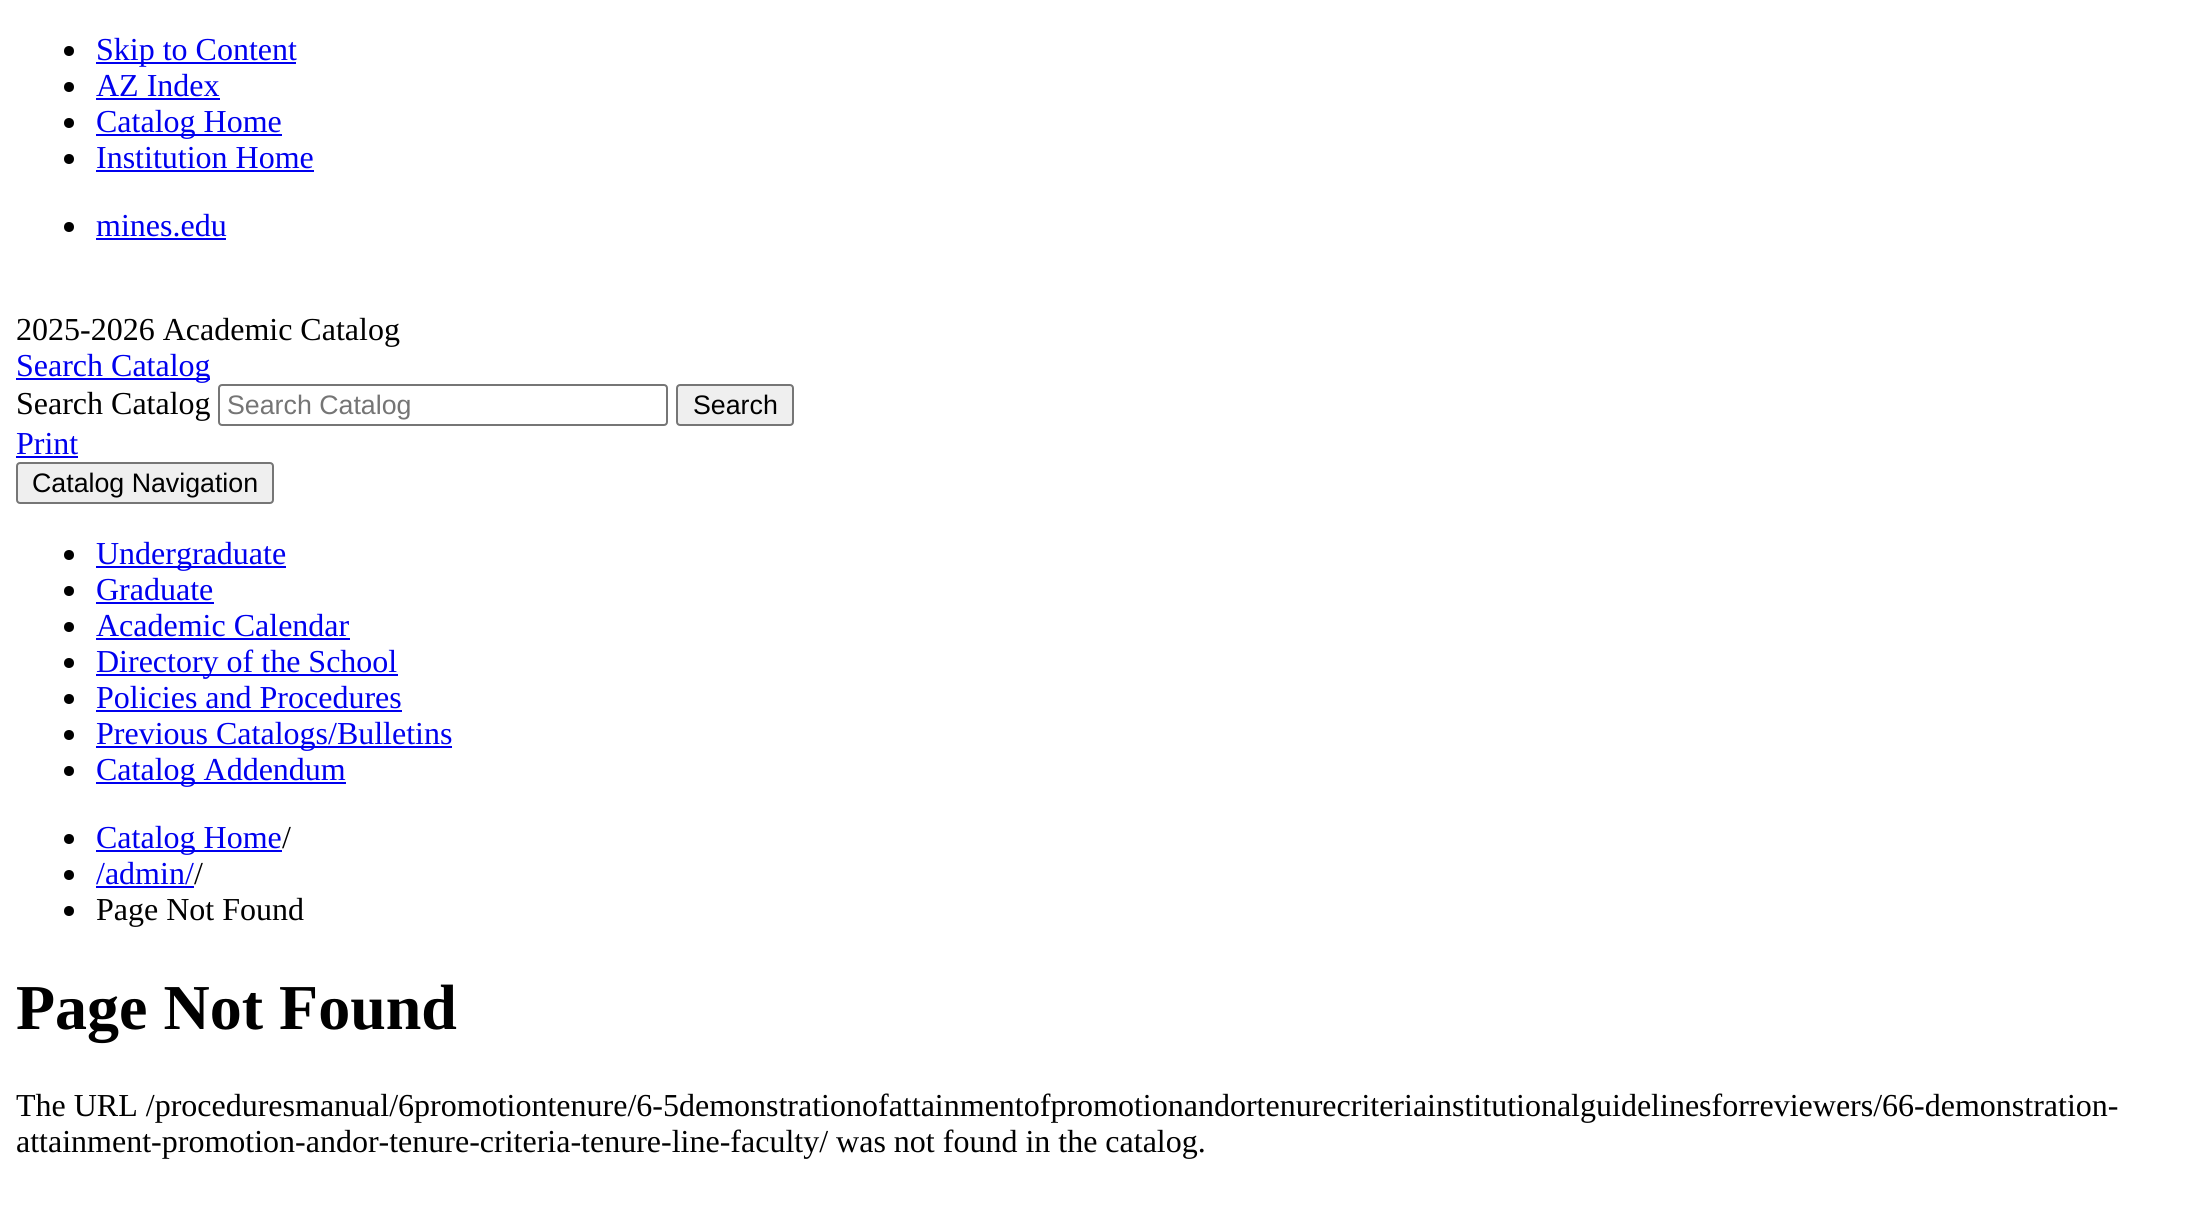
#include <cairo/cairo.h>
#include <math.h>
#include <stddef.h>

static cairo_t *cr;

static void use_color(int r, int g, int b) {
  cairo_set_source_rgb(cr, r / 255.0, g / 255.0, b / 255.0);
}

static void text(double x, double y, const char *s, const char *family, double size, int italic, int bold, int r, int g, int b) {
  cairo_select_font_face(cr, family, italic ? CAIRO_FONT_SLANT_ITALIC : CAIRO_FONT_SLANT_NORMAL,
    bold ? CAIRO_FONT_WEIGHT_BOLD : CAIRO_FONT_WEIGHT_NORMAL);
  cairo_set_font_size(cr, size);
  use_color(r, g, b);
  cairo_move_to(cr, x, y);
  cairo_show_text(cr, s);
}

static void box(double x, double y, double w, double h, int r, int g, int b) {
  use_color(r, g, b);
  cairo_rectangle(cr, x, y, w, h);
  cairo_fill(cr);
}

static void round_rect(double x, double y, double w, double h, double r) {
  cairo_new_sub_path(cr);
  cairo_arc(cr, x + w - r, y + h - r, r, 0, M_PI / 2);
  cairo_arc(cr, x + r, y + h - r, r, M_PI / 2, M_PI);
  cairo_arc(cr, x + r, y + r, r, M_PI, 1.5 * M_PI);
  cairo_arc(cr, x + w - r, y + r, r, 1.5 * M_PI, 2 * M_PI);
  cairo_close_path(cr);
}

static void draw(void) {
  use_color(255, 255, 255);
  cairo_paint(cr);
  use_color(0, 0, 0);
  cairo_arc(cr, 69, 51, 5, 0, 2 * M_PI);
  cairo_fill(cr);
  box(96, 62, 200, 2, 0, 0, 238);
  use_color(0, 0, 0);
  cairo_arc(cr, 69, 87, 5, 0, 2 * M_PI);
  cairo_fill(cr);
  box(96, 98, 124, 2, 0, 0, 238);
  use_color(0, 0, 0);
  cairo_arc(cr, 69, 123, 5, 0, 2 * M_PI);
  cairo_fill(cr);
  box(96, 134, 186, 2, 0, 0, 238);
  use_color(0, 0, 0);
  cairo_arc(cr, 69, 159, 5, 0, 2 * M_PI);
  cairo_fill(cr);
  box(96, 170, 218, 2, 0, 0, 238);
  use_color(0, 0, 0);
  cairo_arc(cr, 69, 227, 5, 0, 2 * M_PI);
  cairo_fill(cr);
  box(96, 238, 130, 2, 0, 0, 238);
  box(16, 378, 194, 2, 0, 0, 238);
  round_rect(219, 385, 448, 40, 3);
  use_color(118, 118, 118);
  cairo_stroke(cr);
  use_color(239, 239, 239);
  round_rect(677, 385, 116, 40, 3);
  cairo_fill_preserve(cr);
  use_color(118, 118, 118);
  cairo_stroke(cr);
  box(16, 456, 62, 2, 0, 0, 238);
  use_color(239, 239, 239);
  round_rect(17, 463, 256, 40, 3);
  cairo_fill_preserve(cr);
  use_color(118, 118, 118);
  cairo_stroke(cr);
  use_color(0, 0, 0);
  cairo_arc(cr, 69, 555, 5, 0, 2 * M_PI);
  cairo_fill(cr);
  box(96, 566, 190, 2, 0, 0, 238);
  use_color(0, 0, 0);
  cairo_arc(cr, 69, 591, 5, 0, 2 * M_PI);
  cairo_fill(cr);
  box(96, 602, 118, 2, 0, 0, 238);
  use_color(0, 0, 0);
  cairo_arc(cr, 69, 627, 5, 0, 2 * M_PI);
  cairo_fill(cr);
  box(96, 638, 254, 2, 0, 0, 238);
  use_color(0, 0, 0);
  cairo_arc(cr, 69, 663, 5, 0, 2 * M_PI);
  cairo_fill(cr);
  box(96, 674, 302, 2, 0, 0, 238);
  use_color(0, 0, 0);
  cairo_arc(cr, 69, 699, 5, 0, 2 * M_PI);
  cairo_fill(cr);
  box(96, 710, 306, 2, 0, 0, 238);
  use_color(0, 0, 0);
  cairo_arc(cr, 69, 735, 5, 0, 2 * M_PI);
  cairo_fill(cr);
  box(96, 746, 356, 2, 0, 0, 238);
  use_color(0, 0, 0);
  cairo_arc(cr, 69, 771, 5, 0, 2 * M_PI);
  cairo_fill(cr);
  box(96, 782, 250, 2, 0, 0, 238);
  use_color(0, 0, 0);
  cairo_arc(cr, 69, 839, 5, 0, 2 * M_PI);
  cairo_fill(cr);
  box(96, 850, 186, 2, 0, 0, 238);
  use_color(0, 0, 0);
  cairo_arc(cr, 69, 875, 5, 0, 2 * M_PI);
  cairo_fill(cr);
  box(96, 886, 98, 2, 0, 0, 238);
  use_color(0, 0, 0);
  cairo_arc(cr, 69, 911, 5, 0, 2 * M_PI);
  cairo_fill(cr);
  text(96, 60, "Skip to Content", "Liberation Serif", 32, 0, 0, 0, 0, 238);
  text(96, 96, "AZ Index", "Liberation Serif", 32, 0, 0, 0, 0, 238);
  text(96, 132, "Catalog Home", "Liberation Serif", 32, 0, 0, 0, 0, 238);
  text(96, 168, "Institution Home", "Liberation Serif", 32, 0, 0, 0, 0, 238);
  text(96, 236, "mines.edu", "Liberation Serif", 32, 0, 0, 0, 0, 238);
  text(16, 340, "2025-2026 Academic Catalog", "Liberation Serif", 32, 0, 0, 0, 0, 0);
  text(16, 376, "Search Catalog", "Liberation Serif", 32, 0, 0, 0, 0, 238);
  text(16, 414, "Search Catalog", "Liberation Serif", 32, 0, 0, 0, 0, 0);
  text(227, 414, "Search Catalog", "Liberation Sans", 26.75, 0, 0, 117, 117, 117);
  text(693, 414, "Search", "Liberation Sans", 26.75, 0, 0, 0, 0, 0);
  text(16, 454, "Print", "Liberation Serif", 32, 0, 0, 0, 0, 238);
  text(32, 492, "Catalog Navigation", "Liberation Sans", 26.75, 0, 0, 0, 0, 0);
  text(96, 564, "Undergraduate", "Liberation Serif", 32, 0, 0, 0, 0, 238);
  text(96, 600, "Graduate", "Liberation Serif", 32, 0, 0, 0, 0, 238);
  text(96, 636, "Academic Calendar", "Liberation Serif", 32, 0, 0, 0, 0, 238);
  text(96, 672, "Directory of the School", "Liberation Serif", 32, 0, 0, 0, 0, 238);
  text(96, 708, "Policies and Procedures", "Liberation Serif", 32, 0, 0, 0, 0, 238);
  text(96, 744, "Previous Catalogs/Bulletins", "Liberation Serif", 32, 0, 0, 0, 0, 238);
  text(96, 780, "Catalog Addendum", "Liberation Serif", 32, 0, 0, 0, 0, 238);
  text(96, 848, "Catalog Home", "Liberation Serif", 32, 0, 0, 0, 0, 238);
  text(282, 848, "/", "Liberation Serif", 32, 0, 0, 0, 0, 0);
  text(96, 884, "/admin/", "Liberation Serif", 32, 0, 0, 0, 0, 238);
  text(194, 884, "/", "Liberation Serif", 32, 0, 0, 0, 0, 0);
  text(96, 920, "Page Not Found", "Liberation Serif", 32, 0, 0, 0, 0, 0);
  text(16, 1029, "Page Not Found", "Liberation Serif", 64, 0, 1, 0, 0, 0);
  text(16, 1116, "The URL /proceduresmanual/6promotiontenure/6-5demonstrationofattainmentofpromotionandortenurecriteriainstitutionalguidelinesforreviewers/66-demonstration-", "Liberation Serif", 32, 0, 0, 0, 0, 0);
  text(16, 1152, "attainment-promotion-andor-tenure-criteria-tenure-line-faculty/ was not found in the catalog.", "Liberation Serif", 32, 0, 0, 0, 0, 0);
}

int main(void) {
  cairo_surface_t *surface = cairo_image_surface_create(CAIRO_FORMAT_RGB24, 2201, 1206);
  cr = cairo_create(surface);
  cairo_font_options_t *options = cairo_font_options_create();
  cairo_font_options_set_hint_metrics(options, CAIRO_HINT_METRICS_OFF);
  cairo_font_options_set_hint_style(options, CAIRO_HINT_STYLE_NONE);
  cairo_set_font_options(cr, options);
  cairo_set_miter_limit(cr, 4);
  draw();
  cairo_surface_write_to_png(surface, "out.png");
  cairo_font_options_destroy(options);
  cairo_destroy(cr);
  cairo_surface_destroy(surface);
  return 0;
}
